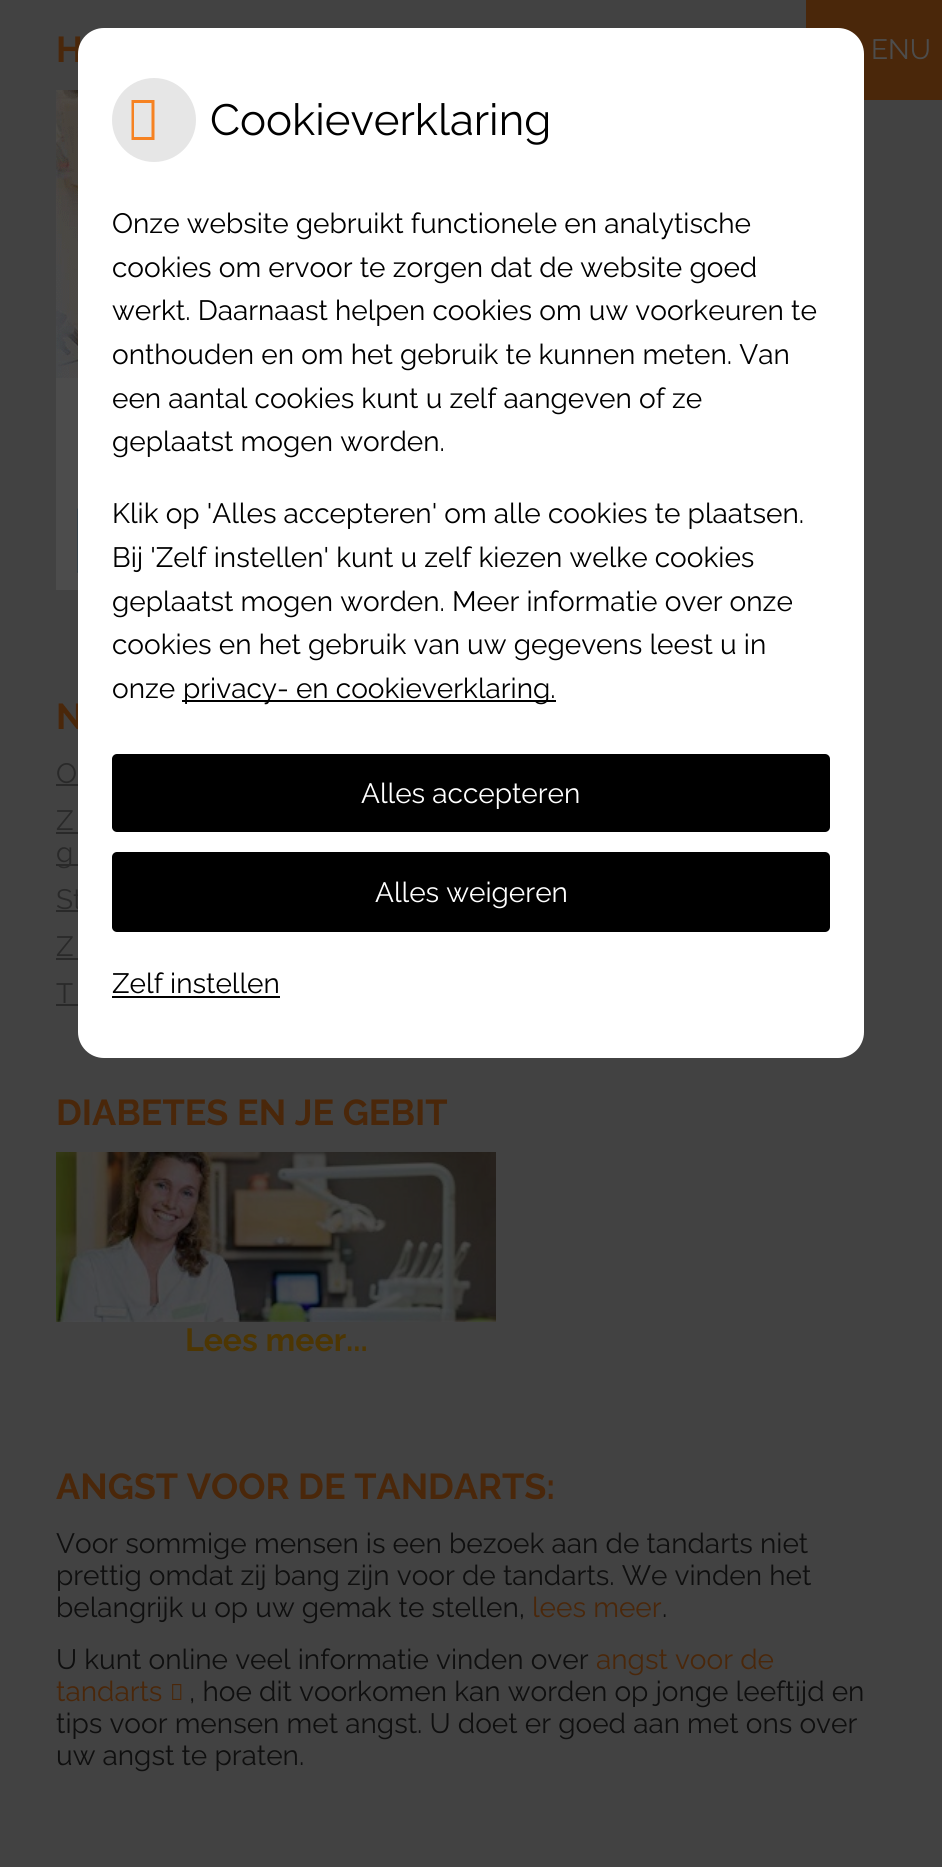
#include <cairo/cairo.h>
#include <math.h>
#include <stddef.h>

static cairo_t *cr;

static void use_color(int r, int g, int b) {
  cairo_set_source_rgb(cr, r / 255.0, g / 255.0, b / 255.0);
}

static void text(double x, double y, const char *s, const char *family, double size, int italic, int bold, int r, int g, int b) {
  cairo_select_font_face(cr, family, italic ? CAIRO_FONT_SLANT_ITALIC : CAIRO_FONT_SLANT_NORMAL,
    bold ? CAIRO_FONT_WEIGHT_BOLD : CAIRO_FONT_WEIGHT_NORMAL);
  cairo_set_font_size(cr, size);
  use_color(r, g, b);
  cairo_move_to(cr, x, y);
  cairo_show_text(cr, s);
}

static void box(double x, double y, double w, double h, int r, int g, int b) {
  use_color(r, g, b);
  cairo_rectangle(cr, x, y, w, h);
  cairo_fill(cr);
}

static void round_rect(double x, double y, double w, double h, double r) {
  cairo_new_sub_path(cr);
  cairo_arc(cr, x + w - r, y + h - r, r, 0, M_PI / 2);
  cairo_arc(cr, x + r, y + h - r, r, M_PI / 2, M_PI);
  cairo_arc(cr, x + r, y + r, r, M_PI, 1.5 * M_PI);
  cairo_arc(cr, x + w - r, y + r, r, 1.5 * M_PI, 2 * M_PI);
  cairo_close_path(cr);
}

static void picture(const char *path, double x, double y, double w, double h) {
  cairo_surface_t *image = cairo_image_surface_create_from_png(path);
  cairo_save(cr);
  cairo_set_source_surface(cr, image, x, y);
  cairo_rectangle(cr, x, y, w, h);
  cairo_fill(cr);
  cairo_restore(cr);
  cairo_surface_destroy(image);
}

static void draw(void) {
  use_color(66, 66, 66);
  cairo_paint(cr);
  picture("img_01.png", 56, 90, 22, 500);
  box(56, 784, 22, 2, 41, 41, 41);
  box(56, 832, 22, 2, 41, 41, 41);
  box(56, 864, 22, 2, 41, 41, 41);
  box(56, 910, 22, 2, 41, 41, 41);
  box(56, 958, 22, 2, 41, 41, 41);
  box(56, 1004, 22, 2, 41, 41, 41);
  picture("img_02.png", 56, 1152, 440, 170);
  picture("img_03.png", 172, 1684, 10, 16);
  box(806, 0, 136, 100, 74, 39, 10);
  text(56, 62, "H", "Raleway", 36, 0, 1, 74, 39, 10);
  text(56, 729, "N", "Raleway", 36, 0, 1, 74, 39, 10);
  text(56, 783, "O", "Raleway", 28, 0, 0, 41, 41, 41);
  text(56, 830, "Z", "Raleway", 28, 0, 0, 41, 41, 41);
  text(56, 862, "g", "Raleway", 28, 0, 0, 41, 41, 41);
  text(56, 909, "St", "Raleway", 28, 0, 0, 41, 41, 41);
  text(56, 956, "Z", "Raleway", 28, 0, 0, 41, 41, 41);
  text(56, 1003, "T", "Raleway", 28, 0, 0, 41, 41, 41);
  text(56, 1125, "DIABETES EN JE GEBIT", "Raleway", 36, 0, 1, 74, 39, 10);
  text(185, 1351, "Lees meer...", "Raleway", 32, 0, 1, 77, 54, 3);
  text(56, 1499, "ANGST VOOR DE TANDARTS:", "Raleway", 36, 0, 1, 74, 39, 10);
  text(56, 1553, "Voor sommige mensen is een bezoek aan de tandarts niet", "Raleway", 28, 0, 0, 15, 15, 15);
  text(56, 1585, "prettig omdat zij bang zijn voor de tandarts. We vinden het", "Raleway", 28, 0, 0, 15, 15, 15);
  text(56, 1617, "belangrijk u op uw gemak te stellen,", "Raleway", 28, 0, 0, 15, 15, 15);
  text(532, 1617, "lees meer", "Raleway", 28, 0, 0, 74, 39, 10);
  text(662, 1617, ".", "Raleway", 28, 0, 0, 15, 15, 15);
  text(596, 1669, "angst voor de", "Raleway", 28, 0, 0, 74, 39, 10);
  text(56, 1701, "tandarts", "Raleway", 28, 0, 0, 74, 39, 10);
  text(56, 1669, "U kunt online veel informatie vinden over", "Raleway", 28, 0, 0, 15, 15, 15);
  text(189, 1701, ", hoe dit voorkomen kan worden op jonge leeftijd en", "Raleway", 28, 0, 0, 15, 15, 15);
  text(56, 1733, "tips voor mensen met angst. U doet er goed aan met ons over", "Raleway", 28, 0, 0, 15, 15, 15);
  text(56, 1765, "uw angst te praten.", "Raleway", 28, 0, 0, 15, 15, 15);
  text(871, 59, "ENU", "Raleway", 28, 0, 0, 77, 77, 77);
  use_color(255, 255, 255);
  round_rect(78, 28, 786, 1030, 26);
  cairo_fill(cr);
  use_color(230, 230, 230);
  cairo_arc(cr, 154, 120, 42, 0, 2 * M_PI);
  cairo_fill(cr);
  use_color(246, 130, 34);
  cairo_new_path(cr);
  cairo_move_to(cr, 131.5, 140);
  cairo_line_to(cr, 131.5, 100);
  cairo_line_to(cr, 154.5, 100);
  cairo_line_to(cr, 154.5, 140);
  cairo_close_path(cr);
  cairo_move_to(cr, 134, 137);
  cairo_line_to(cr, 151.5, 137);
  cairo_line_to(cr, 151.5, 103);
  cairo_line_to(cr, 134, 103);
  cairo_close_path(cr);
  cairo_fill(cr);
  text(210, 135, "Cookieverklaring", "Raleway", 43.75, 0, 0, 0, 0, 0);
  text(112, 233, "Onze website gebruikt functionele en analytische", "Raleway", 28, 0, 0, 0, 0, 0);
  text(112, 277, "cookies om ervoor te zorgen dat de website goed", "Raleway", 28, 0, 0, 0, 0, 0);
  text(112, 320, "werkt. Daarnaast helpen cookies om uw voorkeuren te", "Raleway", 28, 0, 0, 0, 0, 0);
  text(112, 364, "onthouden en om het gebruik te kunnen meten. Van", "Raleway", 28, 0, 0, 0, 0, 0);
  text(112, 408, "een aantal cookies kunt u zelf aangeven of ze", "Raleway", 28, 0, 0, 0, 0, 0);
  text(112, 451, "geplaatst mogen worden.", "Raleway", 28, 0, 0, 0, 0, 0);
  text(112, 523, "Klik op 'Alles accepteren' om alle cookies te plaatsen.", "Raleway", 28, 0, 0, 0, 0, 0);
  text(112, 567, "Bij 'Zelf instellen' kunt u zelf kiezen welke cookies", "Raleway", 28, 0, 0, 0, 0, 0);
  text(112, 611, "geplaatst mogen worden. Meer informatie over onze", "Raleway", 28, 0, 0, 0, 0, 0);
  text(112, 654, "cookies en het gebruik van uw gegevens leest u in", "Raleway", 28, 0, 0, 0, 0, 0);
  text(112, 698, "onze", "Raleway", 28, 0, 0, 0, 0, 0);
  box(182, 700, 374, 2, 0, 0, 0);
  text(183, 698, "privacy- en cookieverklaring.", "Raleway", 28, 0, 0, 0, 0, 0);
  round_rect(112, 754, 718, 78, 5);
  cairo_fill(cr);
  text(361, 803, "Alles accepteren", "Raleway", 28, 0, 0, 255, 255, 255);
  use_color(0, 0, 0);
  round_rect(112, 852, 718, 80, 5);
  cairo_fill(cr);
  text(375, 902, "Alles weigeren", "Raleway", 28, 0, 0, 255, 255, 255);
  text(112, 993, "Zelf instellen", "Raleway", 28, 0, 0, 0, 0, 0);
  box(112, 996, 168, 2, 0, 0, 0);
}

int main(void) {
  cairo_surface_t *surface = cairo_image_surface_create(CAIRO_FORMAT_RGB24, 942, 1867);
  cr = cairo_create(surface);
  cairo_font_options_t *options = cairo_font_options_create();
  cairo_font_options_set_hint_metrics(options, CAIRO_HINT_METRICS_OFF);
  cairo_font_options_set_hint_style(options, CAIRO_HINT_STYLE_NONE);
  cairo_set_font_options(cr, options);
  cairo_set_miter_limit(cr, 4);
  draw();
  cairo_surface_write_to_png(surface, "out.png");
  cairo_font_options_destroy(options);
  cairo_destroy(cr);
  cairo_surface_destroy(surface);
  return 0;
}
